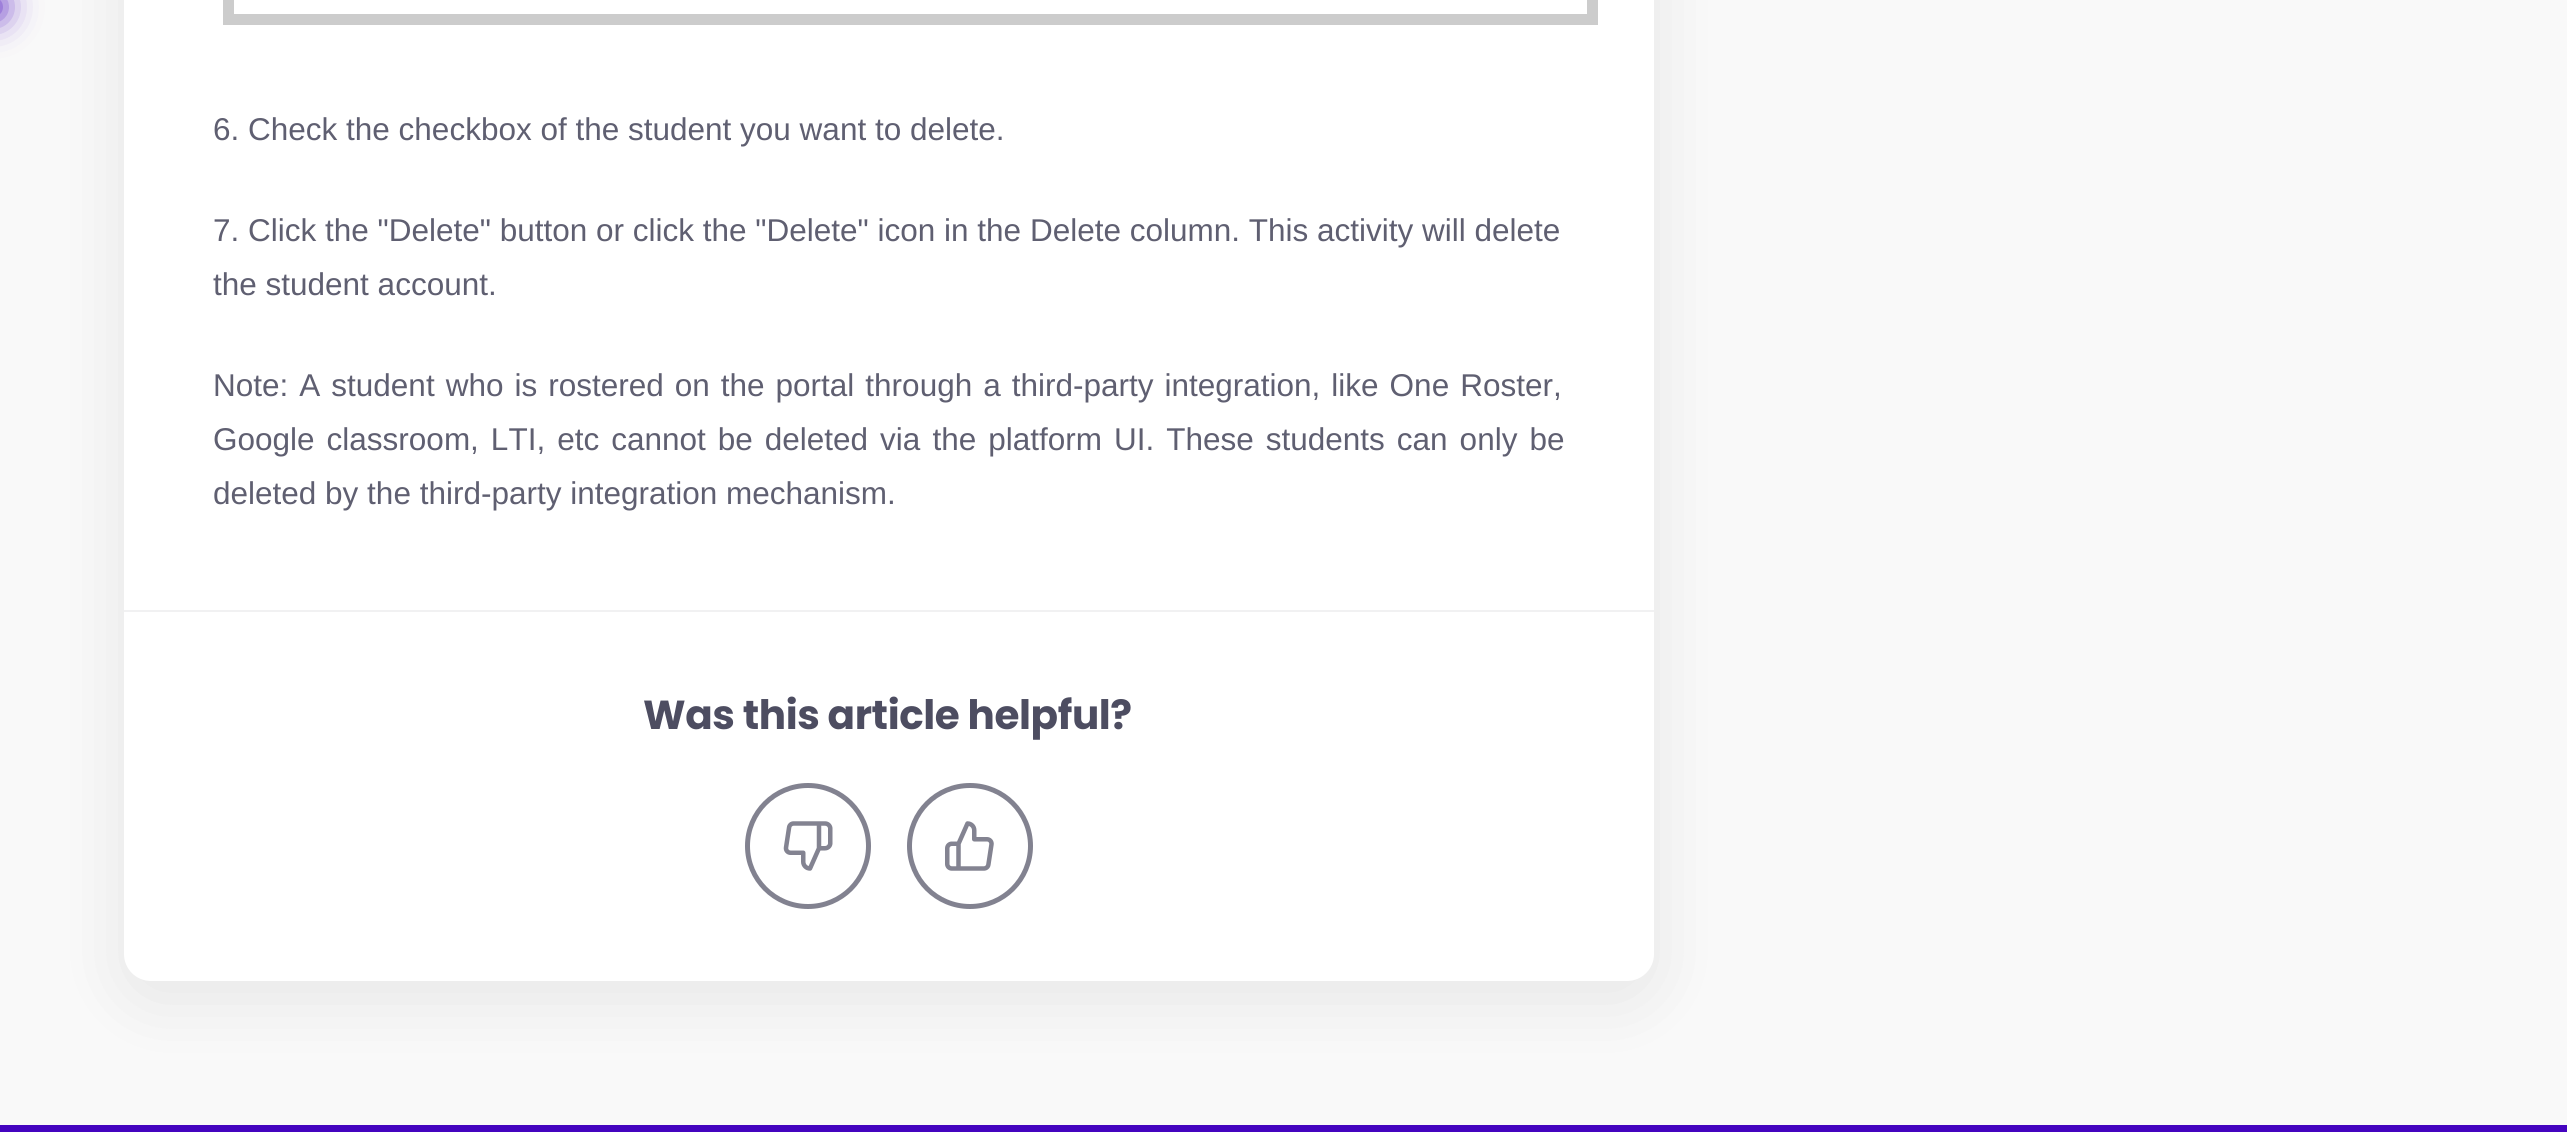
#include <cairo/cairo.h>
#include <math.h>
#include <stddef.h>

static cairo_t *cr;

static void use_color(int r, int g, int b) {
  cairo_set_source_rgb(cr, r / 255.0, g / 255.0, b / 255.0);
}

static void text(double x, double y, const char *s, const char *family, double size, int italic, int bold, int r, int g, int b) {
  cairo_select_font_face(cr, family, italic ? CAIRO_FONT_SLANT_ITALIC : CAIRO_FONT_SLANT_NORMAL,
    bold ? CAIRO_FONT_WEIGHT_BOLD : CAIRO_FONT_WEIGHT_NORMAL);
  cairo_set_font_size(cr, size);
  use_color(r, g, b);
  cairo_move_to(cr, x, y);
  cairo_show_text(cr, s);
}

static void spaced_text(double x, double y, const char *s, double letter, double word) {
  cairo_move_to(cr, x, y);
  while (*s) {
    char ch[5] = {0};
    int n = 0;
    do ch[n++] = *s++; while ((*s & 0xC0) == 0x80);
    cairo_show_text(cr, ch);
    cairo_rel_move_to(cr, letter + word * (*ch == ' '), 0);
  }
}

static void box(double x, double y, double w, double h, int r, int g, int b) {
  use_color(r, g, b);
  cairo_rectangle(cr, x, y, w, h);
  cairo_fill(cr);
}

static void round_rect(double x, double y, double w, double h, double r) {
  cairo_new_sub_path(cr);
  cairo_arc(cr, x + w - r, y + h - r, r, 0, M_PI / 2);
  cairo_arc(cr, x + r, y + h - r, r, M_PI / 2, M_PI);
  cairo_arc(cr, x + r, y + r, r, M_PI, 1.5 * M_PI);
  cairo_arc(cr, x + w - r, y + r, r, 1.5 * M_PI, 2 * M_PI);
  cairo_close_path(cr);
}

static void shadow(double x, double y, double w, double h, double r, double blur, double alpha) {
  cairo_push_group_with_content(cr, CAIRO_CONTENT_ALPHA);
  cairo_set_operator(cr, CAIRO_OPERATOR_SOURCE);
  for (int i = 15; i >= -15 && fmin(w, h) + blur * i / 3 > 0; i -= 2) {
    double e = blur * i / 6;
    cairo_set_source_rgba(cr, 0, 0, 0, alpha * erfc((i - 1) / 8.5) / 2);
    round_rect(x - e, y - e, w + 2 * e, h + 2 * e, fmax(0, fmin(r + e + blur * .6, fmin(w, h) / 2 + e)));
    cairo_fill(cr);
  }
  cairo_pattern_t *soft = cairo_pop_group(cr);
  cairo_mask(cr, soft);
  cairo_pattern_destroy(soft);
}

static void picture(const char *path, double x, double y, double w, double h) {
  cairo_surface_t *image = cairo_image_surface_create_from_png(path);
  cairo_save(cr);
  cairo_set_source_surface(cr, image, x, y);
  cairo_rectangle(cr, x, y, w, h);
  cairo_fill(cr);
  cairo_restore(cr);
  cairo_surface_destroy(image);
}

static void draw(void) {
  use_color(249, 249, 249);
  cairo_paint(cr);
  use_color(67, 5, 187);
  shadow(-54, 0, 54, 14, 0, 18, 1);
  use_color(0, 0, 0);
  shadow(124, -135, 1530, 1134, 27, 36, 0.08);
  use_color(255, 255, 255);
  round_rect(124, -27, 1530, 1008, 27);
  cairo_fill(cr);
  cairo_rectangle(cr, 228.5, -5.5, 1364, 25);
  use_color(204, 204, 204);
  cairo_set_line_width(cr, 11);
  cairo_stroke(cr);
  box(124, 610, 1530, 2, 241, 241, 242);
  picture("img_01.png", 783, 821, 50, 50);
  cairo_arc(cr, 808, 846, 60.5, 0, 2 * M_PI);
  use_color(130, 130, 144);
  cairo_set_line_width(cr, 5);
  cairo_stroke(cr);
  picture("img_02.png", 945, 821, 49, 50);
  cairo_arc(cr, 970, 846, 60.5, 0, 2 * M_PI);
  cairo_stroke(cr);
  box(0, 1125, 2567, 7, 68, 4, 191);
  text(213, 140, "6. Check the checkbox of the student you want to delete.", "Liberation Sans", 31.5, 0, 0, 95, 95, 113);
  text(213, 241, "7. Click the \"Delete\" button or click the \"Delete\" icon in the Delete column. This activity will delete", "Liberation Sans", 31.5, 0, 0, 95, 95, 113);
  text(213, 295, "the student account.", "Liberation Sans", 31.5, 0, 0, 95, 95, 113);
  spaced_text(213, 396, "Note: A student who is rostered on the portal through a third-party integration, like One Roster,", 0, 2.25);
  spaced_text(213, 450, "Google classroom, LTI, etc cannot be deleted via the platform UI. These students can only be", 0, 3.25);
  text(213, 504, "deleted by the third-party integration mechanism.", "Liberation Sans", 31.5, 0, 0, 95, 95, 113);
  cairo_select_font_face(cr, "Poppins", CAIRO_FONT_SLANT_NORMAL, CAIRO_FONT_WEIGHT_BOLD);
  cairo_set_font_size(cr, 40.5);
  use_color(77, 77, 97);
  spaced_text(643, 729, "Was this article helpful?", -0.4, 0);
}

int main(void) {
  cairo_surface_t *surface = cairo_image_surface_create(CAIRO_FORMAT_RGB24, 2567, 1132);
  cr = cairo_create(surface);
  cairo_font_options_t *options = cairo_font_options_create();
  cairo_font_options_set_hint_metrics(options, CAIRO_HINT_METRICS_OFF);
  cairo_font_options_set_hint_style(options, CAIRO_HINT_STYLE_NONE);
  cairo_set_font_options(cr, options);
  cairo_set_miter_limit(cr, 4);
  draw();
  cairo_surface_write_to_png(surface, "out.png");
  cairo_font_options_destroy(options);
  cairo_destroy(cr);
  cairo_surface_destroy(surface);
  return 0;
}
